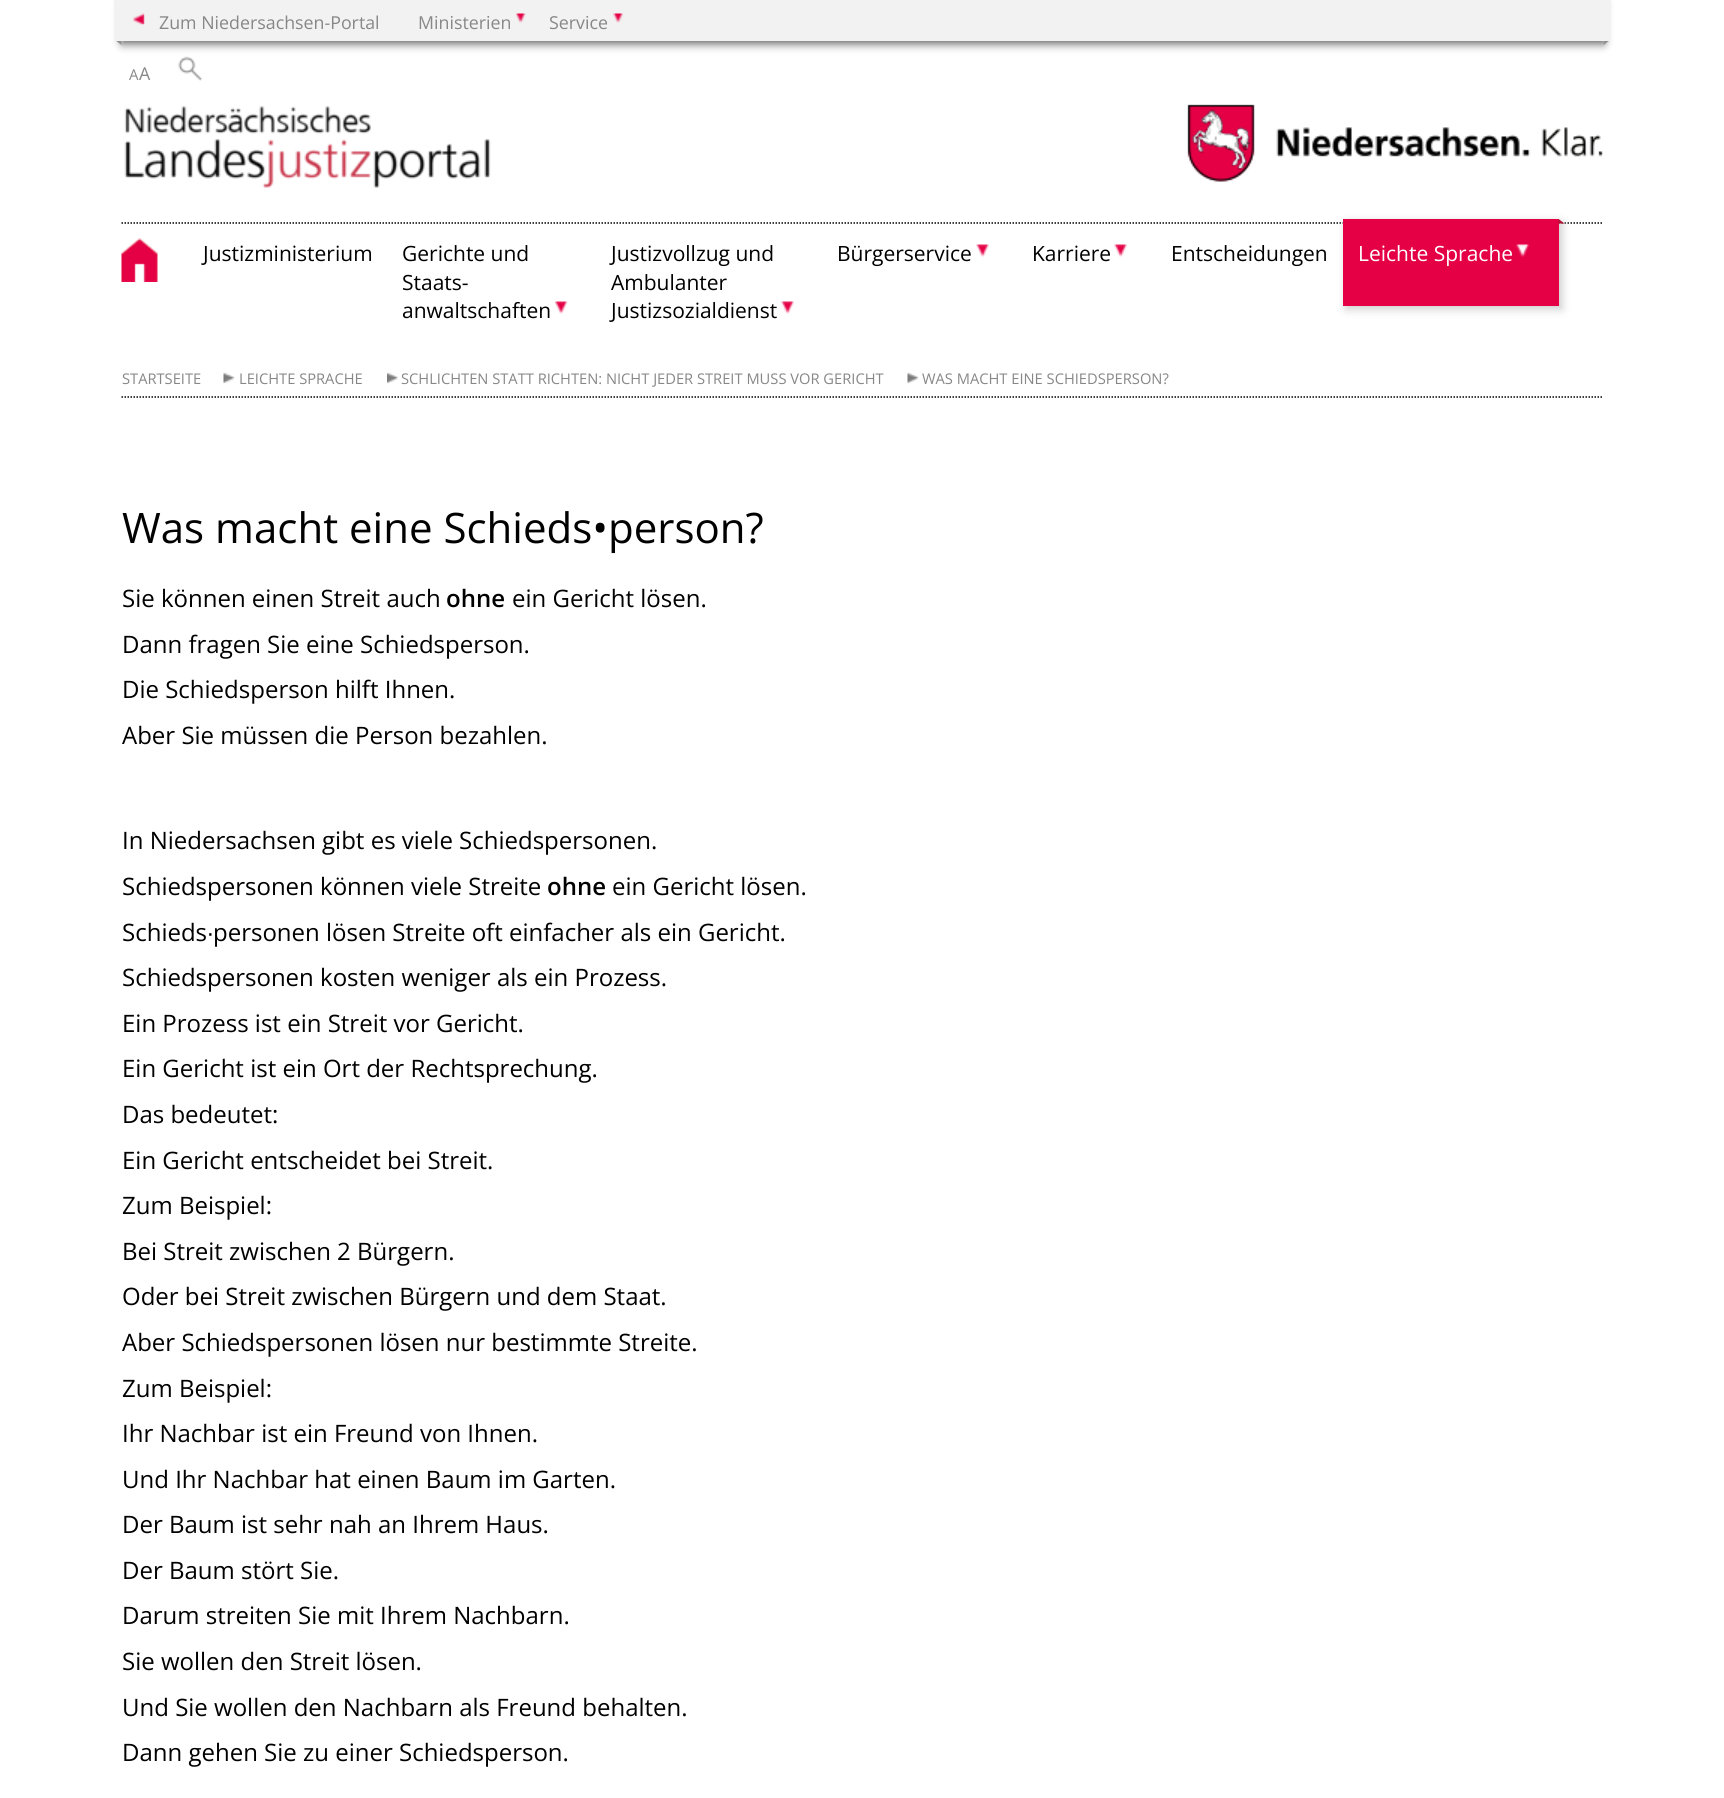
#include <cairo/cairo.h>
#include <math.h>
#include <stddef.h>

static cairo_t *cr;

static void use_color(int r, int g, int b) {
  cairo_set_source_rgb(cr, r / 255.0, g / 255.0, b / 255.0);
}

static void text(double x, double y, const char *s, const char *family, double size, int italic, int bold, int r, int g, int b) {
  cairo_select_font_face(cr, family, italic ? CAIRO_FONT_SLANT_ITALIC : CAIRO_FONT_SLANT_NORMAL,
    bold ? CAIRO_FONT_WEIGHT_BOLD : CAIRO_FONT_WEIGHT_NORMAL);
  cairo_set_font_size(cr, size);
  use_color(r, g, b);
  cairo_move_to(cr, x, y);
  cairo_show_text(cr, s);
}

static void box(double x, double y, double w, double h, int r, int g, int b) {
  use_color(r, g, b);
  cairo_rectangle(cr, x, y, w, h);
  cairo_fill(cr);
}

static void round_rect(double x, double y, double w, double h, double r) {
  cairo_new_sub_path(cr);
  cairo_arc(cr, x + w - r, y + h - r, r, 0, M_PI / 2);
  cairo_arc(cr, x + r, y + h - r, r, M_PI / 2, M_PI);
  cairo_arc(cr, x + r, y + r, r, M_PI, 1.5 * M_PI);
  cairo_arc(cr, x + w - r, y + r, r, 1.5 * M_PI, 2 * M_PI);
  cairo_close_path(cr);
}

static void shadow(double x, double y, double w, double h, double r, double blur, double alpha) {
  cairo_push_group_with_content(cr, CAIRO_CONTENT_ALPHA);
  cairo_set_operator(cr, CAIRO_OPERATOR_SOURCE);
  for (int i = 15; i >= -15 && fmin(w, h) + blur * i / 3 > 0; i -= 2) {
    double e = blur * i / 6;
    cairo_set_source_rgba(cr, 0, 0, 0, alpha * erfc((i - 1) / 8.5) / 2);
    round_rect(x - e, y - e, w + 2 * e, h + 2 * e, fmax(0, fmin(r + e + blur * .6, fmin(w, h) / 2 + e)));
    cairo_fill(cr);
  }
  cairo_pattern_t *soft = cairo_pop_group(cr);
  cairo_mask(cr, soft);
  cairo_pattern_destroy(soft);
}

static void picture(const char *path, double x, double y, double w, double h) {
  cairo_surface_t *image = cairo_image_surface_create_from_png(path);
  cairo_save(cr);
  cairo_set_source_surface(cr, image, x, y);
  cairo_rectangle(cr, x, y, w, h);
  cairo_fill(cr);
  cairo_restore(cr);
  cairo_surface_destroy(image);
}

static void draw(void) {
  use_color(255, 255, 255);
  cairo_paint(cr);
  picture("img_04.png", 178, 56, 25, 25);
  use_color(102, 102, 102);
  shadow(122, 3, 1482, 41, 0, 4.5, 1);
  box(129, 0, 1467, 41, 242, 242, 242);
  use_color(144, 144, 143);
  cairo_new_path(cr);
  cairo_move_to(cr, 121.5, 40.5);
  cairo_line_to(cr, 121.5, 45);
  cairo_line_to(cr, 115.5, 40.5);
  cairo_close_path(cr);
  cairo_fill(cr);
  box(114, 0, 15, 41, 242, 242, 242);
  picture("img_01.png", 133, 13, 12, 12);
  picture("img_02.png", 515, 13, 11, 10);
  picture("img_03.png", 613, 13, 10, 10);
  use_color(144, 144, 143);
  cairo_new_path(cr);
  cairo_move_to(cr, 1603.5, 45);
  cairo_line_to(cr, 1603.5, 40.5);
  cairo_line_to(cr, 1609.5, 40.5);
  cairo_close_path(cr);
  cairo_fill(cr);
  box(1596, 0, 15, 41, 242, 242, 242);
  picture("img_05.png", 124, 106, 367, 82);
  picture("img_06.png", 1187, 104, 333, 78);
  picture("img_07.png", 1522, 127, 81, 30);
  cairo_new_path(cr);
  cairo_move_to(cr, 121.5, 223);
  cairo_line_to(cr, 1603.5, 223);
  use_color(0, 0, 0);
  cairo_set_line_width(cr, 1.5);
  cairo_set_dash(cr, (double[]){1.5, 1.5}, 2, 0);
  cairo_stroke(cr);
  picture("img_08.png", 121, 238, 37, 44);
  picture("img_09.png", 555, 301, 13, 13);
  picture("img_10.png", 781, 301, 13, 13);
  picture("img_10.png", 976, 244, 13, 13);
  picture("img_11.png", 1114, 244, 13, 13);
  use_color(204, 204, 204);
  shadow(1346, 222, 216, 87, 0, 4.5, 1);
  box(1343, 219, 216, 87, 229, 0, 70);
  use_color(177, 18, 51);
  cairo_new_path(cr);
  cairo_move_to(cr, 1558.5, 223.5);
  cairo_line_to(cr, 1558.5, 219);
  cairo_line_to(cr, 1564.5, 223.5);
  cairo_close_path(cr);
  cairo_fill(cr);
  picture("img_12.png", 1516, 244, 13, 13);
  cairo_new_path(cr);
  cairo_move_to(cr, 121.5, 397);
  cairo_line_to(cr, 1603.5, 397);
  use_color(0, 0, 0);
  cairo_stroke(cr);
  picture("img_13.png", 223, 372, 12, 12);
  picture("img_14.png", 387, 372, 11, 12);
  picture("img_13.png", 907, 372, 12, 12);
  text(159, 29, "Zum Niedersachsen-Portal", "Open Sans", 17.8, 0, 0, 135, 135, 135);
  text(418, 29, "Ministerien", "Open Sans", 17.8, 0, 0, 135, 135, 135);
  text(549, 29, "Service", "Open Sans", 17.8, 0, 0, 135, 135, 135);
  text(129, 80, "A", "Open Sans", 15, 0, 0, 135, 135, 135);
  text(139, 80, "A", "Open Sans", 17.8, 0, 0, 135, 135, 135);
  text(203, 261, "Justizministerium", "Open Sans", 21, 0, 0, 0, 0, 0);
  text(402, 261, "Gerichte und", "Open Sans", 21, 0, 0, 0, 0, 0);
  text(402, 290, "Staats-", "Open Sans", 21, 0, 0, 0, 0, 0);
  text(402, 318, "anwaltschaften", "Open Sans", 21, 0, 0, 0, 0, 0);
  text(611, 261, "Justizvollzug und", "Open Sans", 21, 0, 0, 0, 0, 0);
  text(611, 290, "Ambulanter", "Open Sans", 21, 0, 0, 0, 0, 0);
  text(611, 318, "Justizsozialdienst", "Open Sans", 21, 0, 0, 0, 0, 0);
  text(837, 261, "Bürgerservice", "Open Sans", 21, 0, 0, 0, 0, 0);
  text(1032, 261, "Karriere", "Open Sans", 21, 0, 0, 0, 0, 0);
  text(1171, 261, "Entscheidungen", "Open Sans", 21, 0, 0, 0, 0, 0);
  text(1358, 261, "Leichte Sprache", "Open Sans", 21, 0, 0, 255, 255, 255);
  text(122, 384, "STARTSEITE", "Open Sans", 14.7, 0, 0, 135, 135, 135);
  text(239, 384, "LEICHTE SPRACHE", "Open Sans", 14.7, 0, 0, 135, 135, 135);
  text(401, 384, "SCHLICHTEN STATT RICHTEN: NICHT JEDER STREIT MUSS VOR GERICHT", "Open Sans", 14.7, 0, 0, 135, 135, 135);
  text(922, 384, "WAS MACHT EINE SCHIEDSPERSON?", "Open Sans", 14.7, 0, 0, 135, 135, 135);
  text(122, 543, "Was macht eine Schieds•person?", "Open Sans", 42, 0, 0, 0, 0, 0);
  text(122, 607, "Sie können einen Streit auch", "Open Sans", 24, 0, 0, 0, 0, 0);
  text(446, 607, "ohne", "Open Sans SemiBold", 24, 0, 0, 0, 0, 0);
  text(512, 607, "ein Gericht lösen.", "Open Sans", 24, 0, 0, 0, 0, 0);
  text(122, 653, "Dann fragen Sie eine Schiedsperson.", "Open Sans", 24, 0, 0, 0, 0, 0);
  text(122, 698, "Die Schiedsperson hilft Ihnen.", "Open Sans", 24, 0, 0, 0, 0, 0);
  text(122, 744, "Aber Sie müssen die Person bezahlen.", "Open Sans", 24, 0, 0, 0, 0, 0);
  text(122, 849, "In Niedersachsen gibt es viele Schiedspersonen.", "Open Sans", 24, 0, 0, 0, 0, 0);
  text(122, 895, "Schiedspersonen können viele Streite", "Open Sans", 24, 0, 0, 0, 0, 0);
  text(547, 895, "ohne", "Open Sans SemiBold", 24, 0, 0, 0, 0, 0);
  text(612, 895, "ein Gericht lösen.", "Open Sans", 24, 0, 0, 0, 0, 0);
  text(122, 941, "Schieds", "Open Sans", 24, 0, 0, 0, 0, 0);
  text(207, 941, "∙", "Liberation Sans", 24, 0, 0, 0, 0, 0);
  text(213, 941, "personen lösen Streite oft einfacher als ein Gericht.", "Open Sans", 24, 0, 0, 0, 0, 0);
  text(122, 986, "Schiedspersonen kosten weniger als ein Prozess.", "Open Sans", 24, 0, 0, 0, 0, 0);
  text(122, 1032, "Ein Prozess ist ein Streit vor Gericht.", "Open Sans", 24, 0, 0, 0, 0, 0);
  text(122, 1077, "Ein Gericht ist ein Ort der Rechtsprechung.", "Open Sans", 24, 0, 0, 0, 0, 0);
  text(122, 1123, "Das bedeutet:", "Open Sans", 24, 0, 0, 0, 0, 0);
  text(122, 1169, "Ein Gericht entscheidet bei Streit.", "Open Sans", 24, 0, 0, 0, 0, 0);
  text(122, 1214, "Zum Beispiel:", "Open Sans", 24, 0, 0, 0, 0, 0);
  text(122, 1260, "Bei Streit zwischen 2 Bürgern.", "Open Sans", 24, 0, 0, 0, 0, 0);
  text(122, 1305, "Oder bei Streit zwischen Bürgern und dem Staat.", "Open Sans", 24, 0, 0, 0, 0, 0);
  text(122, 1351, "Aber Schiedspersonen lösen nur bestimmte Streite.", "Open Sans", 24, 0, 0, 0, 0, 0);
  text(122, 1397, "Zum Beispiel:", "Open Sans", 24, 0, 0, 0, 0, 0);
  text(122, 1442, "Ihr Nachbar ist ein Freund von Ihnen.", "Open Sans", 24, 0, 0, 0, 0, 0);
  text(122, 1488, "Und Ihr Nachbar hat einen Baum im Garten.", "Open Sans", 24, 0, 0, 0, 0, 0);
  text(122, 1533, "Der Baum ist sehr nah an Ihrem Haus.", "Open Sans", 24, 0, 0, 0, 0, 0);
  text(122, 1579, "Der Baum stört Sie.", "Open Sans", 24, 0, 0, 0, 0, 0);
  text(122, 1624, "Darum streiten Sie mit Ihrem Nachbarn.", "Open Sans", 24, 0, 0, 0, 0, 0);
  text(122, 1670, "Sie wollen den Streit lösen.", "Open Sans", 24, 0, 0, 0, 0, 0);
  text(122, 1716, "Und Sie wollen den Nachbarn als Freund behalten.", "Open Sans", 24, 0, 0, 0, 0, 0);
  text(122, 1761, "Dann gehen Sie zu einer Schiedsperson.", "Open Sans", 24, 0, 0, 0, 0, 0);
}

int main(void) {
  cairo_surface_t *surface = cairo_image_surface_create(CAIRO_FORMAT_RGB24, 1724, 1798);
  cr = cairo_create(surface);
  cairo_font_options_t *options = cairo_font_options_create();
  cairo_font_options_set_hint_metrics(options, CAIRO_HINT_METRICS_OFF);
  cairo_font_options_set_hint_style(options, CAIRO_HINT_STYLE_NONE);
  cairo_set_font_options(cr, options);
  cairo_set_miter_limit(cr, 4);
  draw();
  cairo_surface_write_to_png(surface, "out.png");
  cairo_font_options_destroy(options);
  cairo_destroy(cr);
  cairo_surface_destroy(surface);
  return 0;
}
